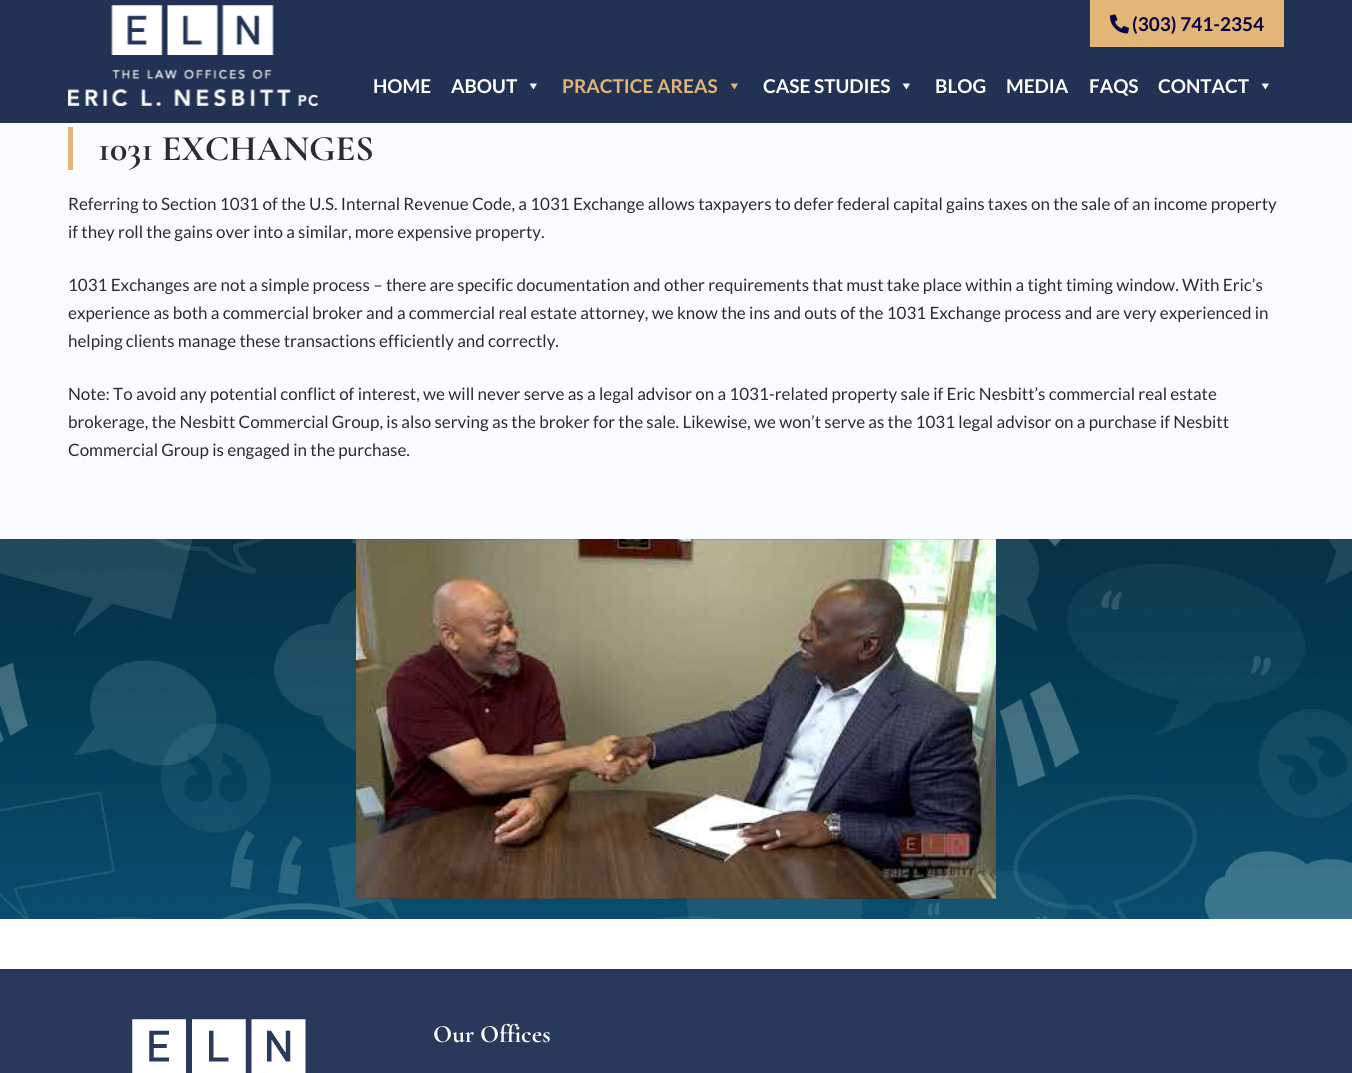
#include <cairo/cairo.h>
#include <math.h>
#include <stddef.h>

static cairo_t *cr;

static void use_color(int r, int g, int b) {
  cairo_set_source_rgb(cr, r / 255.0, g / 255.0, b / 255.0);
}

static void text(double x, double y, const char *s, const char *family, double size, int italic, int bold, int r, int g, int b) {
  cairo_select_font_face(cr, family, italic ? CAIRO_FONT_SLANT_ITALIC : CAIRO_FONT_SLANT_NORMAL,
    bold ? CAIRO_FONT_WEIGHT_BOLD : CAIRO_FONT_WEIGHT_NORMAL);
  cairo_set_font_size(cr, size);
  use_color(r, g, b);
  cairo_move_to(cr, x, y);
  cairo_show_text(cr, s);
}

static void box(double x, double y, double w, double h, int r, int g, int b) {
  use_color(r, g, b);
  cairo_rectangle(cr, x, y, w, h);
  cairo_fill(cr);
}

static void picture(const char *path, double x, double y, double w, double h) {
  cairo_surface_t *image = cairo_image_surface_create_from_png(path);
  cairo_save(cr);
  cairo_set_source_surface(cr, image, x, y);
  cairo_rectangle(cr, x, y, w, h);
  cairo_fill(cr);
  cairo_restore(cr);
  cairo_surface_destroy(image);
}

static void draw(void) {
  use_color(255, 255, 255);
  cairo_paint(cr);
  box(0, 0, 1352, 123, 33, 50, 84);
  picture("img_01.png", 68, 5, 250, 101);
  box(1090, 0, 194, 47, 227, 181, 118);
  picture("img_02.png", 1110, 14, 19, 20);
  use_color(255, 255, 255);
  cairo_new_path(cr);
  cairo_move_to(cr, 537, 83.5);
  cairo_line_to(cr, 533.5, 89.5);
  cairo_line_to(cr, 529.5, 83.5);
  cairo_close_path(cr);
  cairo_fill(cr);
  use_color(227, 181, 118);
  cairo_new_path(cr);
  cairo_move_to(cr, 738, 83.5);
  cairo_line_to(cr, 734.5, 89.5);
  cairo_line_to(cr, 730.5, 83.5);
  cairo_close_path(cr);
  cairo_fill(cr);
  use_color(255, 255, 255);
  cairo_new_path(cr);
  cairo_move_to(cr, 910, 83.5);
  cairo_line_to(cr, 906.5, 89.5);
  cairo_line_to(cr, 902.5, 83.5);
  cairo_close_path(cr);
  cairo_fill(cr);
  cairo_new_path(cr);
  cairo_move_to(cr, 1269, 83.5);
  cairo_line_to(cr, 1265.5, 89.5);
  cairo_line_to(cr, 1261.5, 83.5);
  cairo_close_path(cr);
  cairo_fill(cr);
  box(0, 123, 1352, 416, 250, 251, 254);
  box(68, 127, 5, 43, 227, 181, 118);
  picture("img_03.png", 0, 539, 1352, 380);
  picture("img_04.png", 356, 539, 640, 360);
  box(0, 969, 1352, 104, 41, 57, 91);
  picture("img_05.png", 132, 1019, 174, 54);
  text(1132, 31, "(303) 741-2354", "Lato", 19, 0, 1, 7, 1, 67);
  text(373, 93, "HOME", "Lato", 19, 0, 1, 255, 255, 255);
  text(451, 93, "ABOUT", "Lato", 19, 0, 1, 255, 255, 255);
  text(562, 93, "PRACTICE AREAS", "Lato", 19, 0, 1, 227, 181, 118);
  text(763, 93, "CASE STUDIES", "Lato", 19, 0, 1, 255, 255, 255);
  text(935, 93, "BLOG", "Lato", 19, 0, 1, 255, 255, 255);
  text(1006, 93, "MEDIA", "Lato", 19, 0, 1, 255, 255, 255);
  text(1089, 93, "FAQS", "Lato", 19, 0, 1, 255, 255, 255);
  text(1158, 93, "CONTACT", "Lato", 19, 0, 1, 255, 255, 255);
  text(98, 160, "1031 EXCHANGES", "Cormorant Garamond Light", 36, 0, 0, 47, 42, 45);
  text(68, 210, "Referring to Section 1031 of the U.S. Internal Revenue Code, a 1031 Exchange allows taxpayers to defer federal capital gains taxes on the sale of an income property", "Lato", 17, 0, 0, 47, 42, 45);
  text(68, 238, "if they roll the gains over into a similar, more expensive property.", "Lato", 17, 0, 0, 47, 42, 45);
  text(68, 291, "1031 Exchanges are not a simple process – there are specific documentation and other requirements that must take place within a tight timing window. With Eric’s", "Lato", 17, 0, 0, 47, 42, 45);
  text(68, 319, "experience as both a commercial broker and a commercial real estate attorney, we know the ins and outs of the 1031 Exchange process and are very experienced in", "Lato", 17, 0, 0, 47, 42, 45);
  text(68, 347, "helping clients manage these transactions efficiently and correctly.", "Lato", 17, 0, 0, 47, 42, 45);
  text(68, 400, "Note: To avoid any potential conflict of interest, we will never serve as a legal advisor on a 1031-related property sale if Eric Nesbitt’s commercial real estate", "Lato", 17, 0, 0, 47, 42, 45);
  text(68, 428, "brokerage, the Nesbitt Commercial Group, is also serving as the broker for the sale. Likewise, we won’t serve as the 1031 legal advisor on a purchase if Nesbitt", "Lato", 17, 0, 0, 47, 42, 45);
  text(68, 456, "Commercial Group is engaged in the purchase.", "Lato", 17, 0, 0, 47, 42, 45);
  text(433, 1042, "Our Offices", "Cormorant Garamond Light", 25, 0, 0, 255, 255, 255);
}

int main(void) {
  cairo_surface_t *surface = cairo_image_surface_create(CAIRO_FORMAT_RGB24, 1352, 1073);
  cr = cairo_create(surface);
  cairo_font_options_t *options = cairo_font_options_create();
  cairo_font_options_set_hint_metrics(options, CAIRO_HINT_METRICS_OFF);
  cairo_font_options_set_hint_style(options, CAIRO_HINT_STYLE_NONE);
  cairo_set_font_options(cr, options);
  cairo_set_miter_limit(cr, 4);
  draw();
  cairo_surface_write_to_png(surface, "out.png");
  cairo_font_options_destroy(options);
  cairo_destroy(cr);
  cairo_surface_destroy(surface);
  return 0;
}
